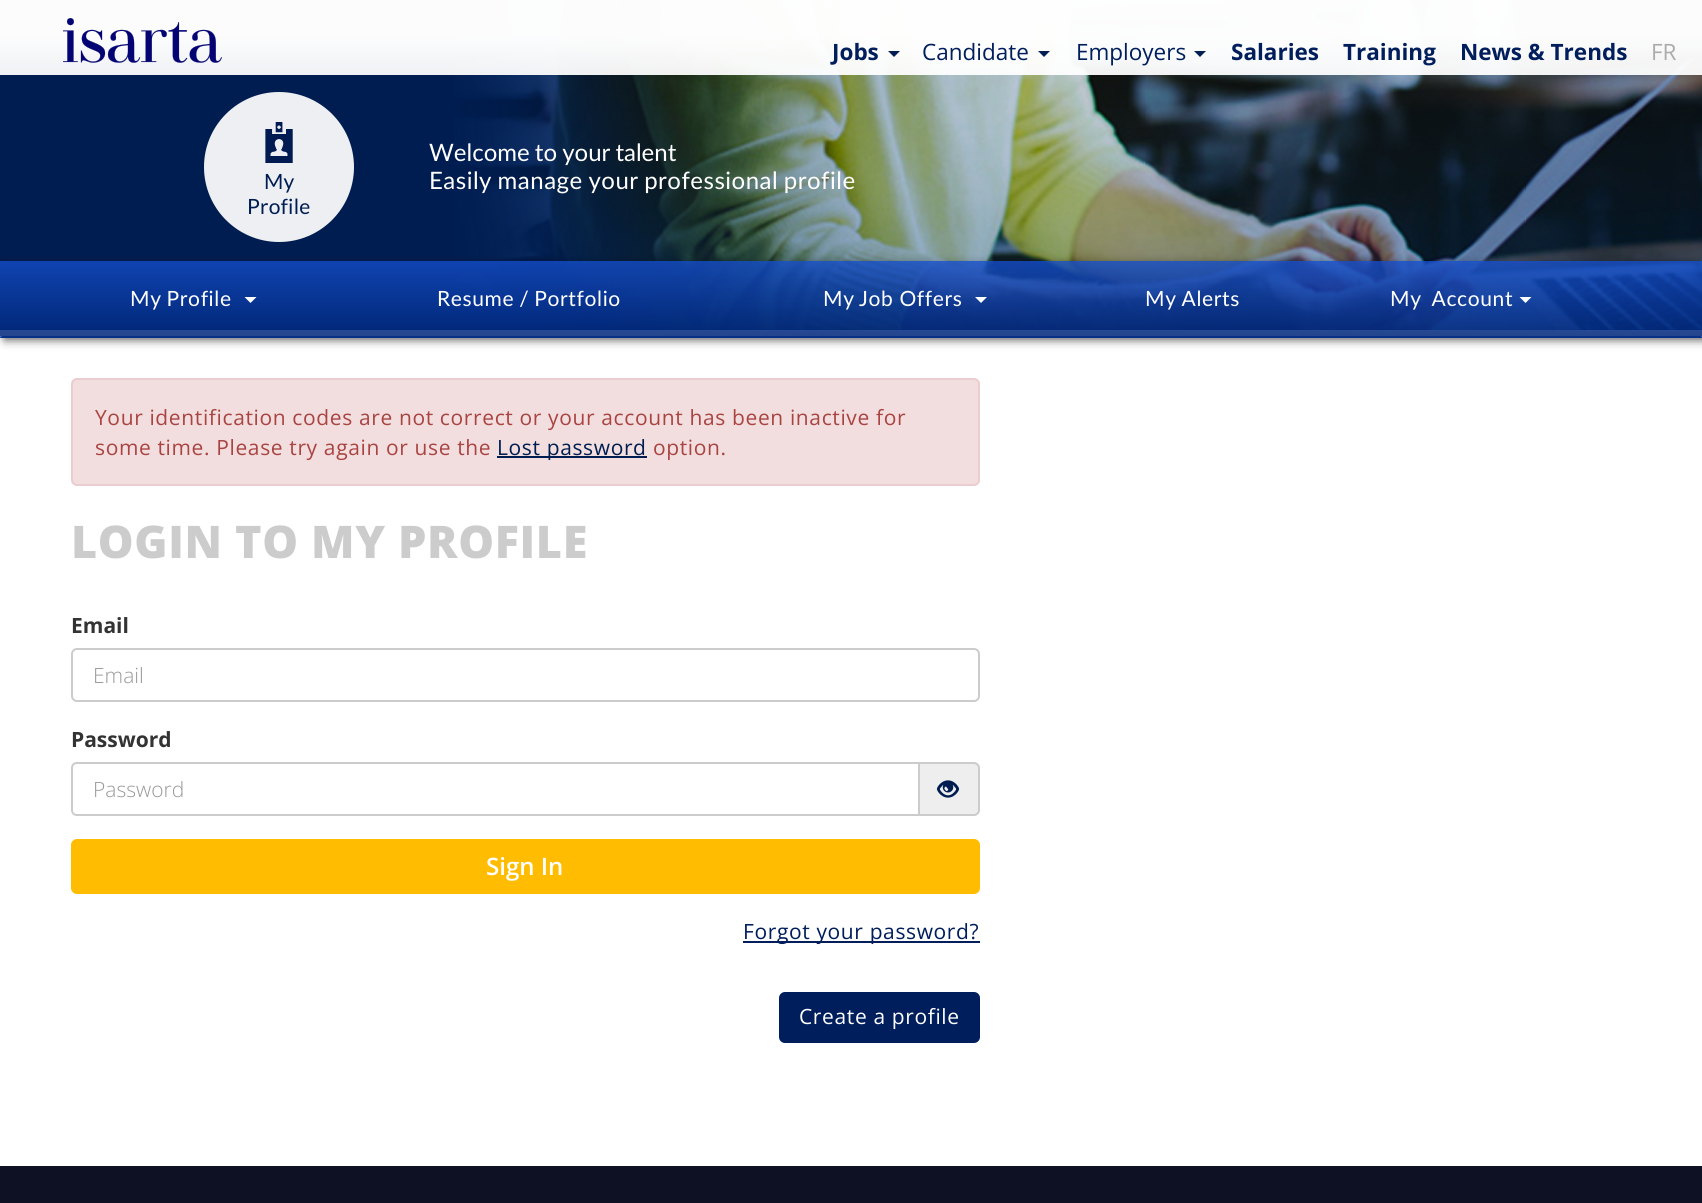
#include <cairo/cairo.h>
#include <math.h>
#include <stddef.h>

static cairo_t *cr;

static void use_color(int r, int g, int b) {
  cairo_set_source_rgb(cr, r / 255.0, g / 255.0, b / 255.0);
}

static void text(double x, double y, const char *s, const char *family, double size, int italic, int bold, int r, int g, int b) {
  cairo_select_font_face(cr, family, italic ? CAIRO_FONT_SLANT_ITALIC : CAIRO_FONT_SLANT_NORMAL,
    bold ? CAIRO_FONT_WEIGHT_BOLD : CAIRO_FONT_WEIGHT_NORMAL);
  cairo_set_font_size(cr, size);
  use_color(r, g, b);
  cairo_move_to(cr, x, y);
  cairo_show_text(cr, s);
}

static void spaced_text(double x, double y, const char *s, double letter, double word) {
  cairo_move_to(cr, x, y);
  while (*s) {
    char ch[5] = {0};
    int n = 0;
    do ch[n++] = *s++; while ((*s & 0xC0) == 0x80);
    cairo_show_text(cr, ch);
    cairo_rel_move_to(cr, letter + word * (*ch == ' '), 0);
  }
}

static void box(double x, double y, double w, double h, int r, int g, int b) {
  use_color(r, g, b);
  cairo_rectangle(cr, x, y, w, h);
  cairo_fill(cr);
}

static void round_rect(double x, double y, double w, double h, double r) {
  cairo_new_sub_path(cr);
  cairo_arc(cr, x + w - r, y + h - r, r, 0, M_PI / 2);
  cairo_arc(cr, x + r, y + h - r, r, M_PI / 2, M_PI);
  cairo_arc(cr, x + r, y + r, r, M_PI, 1.5 * M_PI);
  cairo_arc(cr, x + w - r, y + r, r, 1.5 * M_PI, 2 * M_PI);
  cairo_close_path(cr);
}

static void shadow(double x, double y, double w, double h, double r, double blur, double alpha) {
  cairo_push_group_with_content(cr, CAIRO_CONTENT_ALPHA);
  cairo_set_operator(cr, CAIRO_OPERATOR_SOURCE);
  for (int i = 15; i >= -15 && fmin(w, h) + blur * i / 3 > 0; i -= 2) {
    double e = blur * i / 6;
    cairo_set_source_rgba(cr, 0, 0, 0, alpha * erfc((i - 1) / 8.5) / 2);
    round_rect(x - e, y - e, w + 2 * e, h + 2 * e, fmax(0, fmin(r + e + blur * .6, fmin(w, h) / 2 + e)));
    cairo_fill(cr);
  }
  cairo_pattern_t *soft = cairo_pop_group(cr);
  cairo_mask(cr, soft);
  cairo_pattern_destroy(soft);
}

static void picture(const char *path, double x, double y, double w, double h) {
  cairo_surface_t *image = cairo_image_surface_create_from_png(path);
  cairo_save(cr);
  cairo_set_source_surface(cr, image, x, y);
  cairo_rectangle(cr, x, y, w, h);
  cairo_fill(cr);
  cairo_restore(cr);
  cairo_surface_destroy(image);
}

static void draw(void) {
  cairo_pattern_t *gradient;
  use_color(255, 255, 255);
  cairo_paint(cr);
  box(0, 0, 1324, 330, 0, 29, 81);
  picture("img_02.png", 454, 0, 1248, 330);
  gradient = cairo_pattern_create_linear(851, 0, 851, 75);
  cairo_pattern_add_color_stop_rgba(gradient, 0, 1, 1, 1, 0.99);
  cairo_pattern_add_color_stop_rgba(gradient, 0.45, 1, 1, 1, 0.99);
  cairo_pattern_add_color_stop_rgba(gradient, 1, 1, 1, 1, 0.94);
  cairo_set_source(cr, gradient);
  cairo_pattern_destroy(gradient);
  cairo_rectangle(cr, 0, 0, 1702, 75);
  cairo_fill(cr);
  picture("img_01.png", 63, 18, 159, 45);
  use_color(3, 31, 83);
  cairo_new_path(cr);
  cairo_move_to(cr, 888, 51);
  cairo_line_to(cr, 900, 51);
  cairo_line_to(cr, 894, 57);
  cairo_close_path(cr);
  cairo_fill(cr);
  cairo_new_path(cr);
  cairo_move_to(cr, 1038, 51);
  cairo_line_to(cr, 1050, 51);
  cairo_line_to(cr, 1044, 57);
  cairo_close_path(cr);
  cairo_fill(cr);
  cairo_new_path(cr);
  cairo_move_to(cr, 1194, 51);
  cairo_line_to(cr, 1206, 51);
  cairo_line_to(cr, 1200, 57);
  cairo_close_path(cr);
  cairo_fill(cr);
  use_color(237, 239, 243);
  cairo_arc(cr, 279, 167, 75, 0, 2 * M_PI);
  cairo_fill(cr);
  picture("img_03.png", 265, 122, 28, 41);
  cairo_save(cr);
  cairo_set_fill_rule(cr, CAIRO_FILL_RULE_EVEN_ODD);
  cairo_new_path(cr);
  cairo_move_to(cr, 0, 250);
  cairo_line_to(cr, 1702, 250);
  cairo_line_to(cr, 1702, 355);
  cairo_line_to(cr, 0, 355);
  cairo_close_path(cr);
  cairo_move_to(cr, 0, 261);
  cairo_line_to(cr, 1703, 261);
  cairo_line_to(cr, 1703, 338);
  cairo_line_to(cr, 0, 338);
  cairo_close_path(cr);
  cairo_clip(cr);
  use_color(0, 0, 0);
  shadow(5, 266, 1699, 73, 0, 5, 0.75);
  cairo_restore(cr);
  gradient = cairo_pattern_create_linear(851, 261, 851, 336);
  cairo_pattern_add_color_stop_rgba(gradient, 0, 0.078, 0.302, 0.784, 0.8);
  cairo_pattern_add_color_stop_rgba(gradient, 1, 0, 0.153, 0.482, 0.86);
  cairo_set_source(cr, gradient);
  cairo_pattern_destroy(gradient);
  cairo_rectangle(cr, 0, 261, 1702, 75);
  cairo_fill(cr);
  gradient = cairo_pattern_create_linear(851, 336, 851, 411);
  cairo_pattern_add_color_stop_rgba(gradient, 0, 0.078, 0.302, 0.784, 0.8);
  cairo_pattern_add_color_stop_rgba(gradient, 1, 0, 0.153, 0.482, 0.86);
  cairo_set_source(cr, gradient);
  cairo_pattern_destroy(gradient);
  cairo_rectangle(cr, 0, 336, 1702, 2);
  cairo_fill(cr);
  cairo_set_source_rgba(cr, 0, 0.153, 0.482, 0.86);
  cairo_new_path(cr);
  cairo_move_to(cr, 1702, 338);
  cairo_line_to(cr, 0, 338);
  cairo_line_to(cr, 2, 336);
  cairo_line_to(cr, 1701, 336);
  cairo_close_path(cr);
  cairo_fill(cr);
  use_color(255, 255, 255);
  cairo_new_path(cr);
  cairo_move_to(cr, 244.5, 297);
  cairo_line_to(cr, 256.5, 297);
  cairo_line_to(cr, 250.5, 303);
  cairo_close_path(cr);
  cairo_fill(cr);
  cairo_new_path(cr);
  cairo_move_to(cr, 975, 297);
  cairo_line_to(cr, 987, 297);
  cairo_line_to(cr, 981, 303);
  cairo_close_path(cr);
  cairo_fill(cr);
  cairo_new_path(cr);
  cairo_move_to(cr, 1519.5, 297);
  cairo_line_to(cr, 1531.5, 297);
  cairo_line_to(cr, 1525.5, 303);
  cairo_close_path(cr);
  cairo_fill(cr);
  use_color(242, 222, 222);
  round_rect(72, 379, 907, 106, 5);
  cairo_fill_preserve(cr);
  use_color(235, 204, 209);
  cairo_stroke(cr);
  box(497, 456, 150, 2, 0, 29, 81);
  round_rect(72, 649, 907, 52, 5);
  use_color(204, 204, 204);
  cairo_stroke(cr);
  cairo_new_path(cr);
  cairo_move_to(cr, 77, 763);
  cairo_line_to(cr, 919, 763);
  cairo_line_to(cr, 919, 815);
  cairo_line_to(cr, 77, 815);
  cairo_curve_to(cr, 74, 815, 72, 813, 72, 810);
  cairo_line_to(cr, 72, 768);
  cairo_curve_to(cr, 72, 765, 74, 763, 77, 763);
  cairo_close_path(cr);
  cairo_stroke(cr);
  use_color(238, 238, 238);
  cairo_new_path(cr);
  cairo_move_to(cr, 920, 762);
  cairo_line_to(cr, 974, 762);
  cairo_curve_to(cr, 977.5, 762, 980, 764.5, 980, 768);
  cairo_line_to(cr, 980, 810);
  cairo_curve_to(cr, 980, 813.5, 977.5, 816, 974, 816);
  cairo_line_to(cr, 920, 816);
  cairo_close_path(cr);
  cairo_fill(cr);
  use_color(204, 204, 204);
  cairo_set_fill_rule(cr, CAIRO_FILL_RULE_EVEN_ODD);
  cairo_new_path(cr);
  cairo_move_to(cr, 920, 762);
  cairo_line_to(cr, 974, 762);
  cairo_curve_to(cr, 977, 762, 980, 765, 980, 768);
  cairo_line_to(cr, 980, 810);
  cairo_curve_to(cr, 980, 813, 977, 816, 974, 816);
  cairo_line_to(cr, 920, 816);
  cairo_close_path(cr);
  cairo_move_to(cr, 920, 764);
  cairo_line_to(cr, 974, 764);
  cairo_curve_to(cr, 976, 764, 978, 766, 978, 768);
  cairo_line_to(cr, 978, 810);
  cairo_curve_to(cr, 978, 812, 976, 814, 974, 814);
  cairo_line_to(cr, 920, 814);
  cairo_close_path(cr);
  cairo_fill(cr);
  picture("img_04.png", 936, 780, 24, 18);
  use_color(255, 188, 0);
  round_rect(71, 839, 909, 55, 6);
  cairo_fill(cr);
  box(743, 941, 237, 2, 0, 29, 92);
  round_rect(779, 992, 201, 51, 6);
  cairo_fill(cr);
  box(0, 1166, 1702, 37, 14, 17, 35);
  text(832, 60, "Jobs", "Open Sans", 22.5, 0, 1, 0, 29, 92);
  text(922, 60, "Candidate", "Open Sans", 22.5, 0, 0, 0, 29, 92);
  text(1076, 60, "Employers", "Open Sans", 22.5, 0, 0, 0, 29, 92);
  text(1231, 60, "Salaries", "Open Sans", 22.5, 0, 1, 0, 29, 92);
  text(1343, 60, "Training", "Open Sans", 22.5, 0, 1, 0, 29, 92);
  text(1460, 60, "News & Trends", "Open Sans", 22.5, 0, 1, 0, 29, 92);
  text(1651, 60, "FR", "Open Sans", 22.5, 0, 0, 171, 171, 171);
  cairo_select_font_face(cr, "Lato", CAIRO_FONT_SLANT_NORMAL, CAIRO_FONT_WEIGHT_NORMAL);
  cairo_set_font_size(cr, 21);
  use_color(0, 29, 81);
  spaced_text(264, 189, "My", 0.25, 0);
  spaced_text(247, 214, "Profile", 0.25, 0);
  cairo_select_font_face(cr, "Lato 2", CAIRO_FONT_SLANT_NORMAL, CAIRO_FONT_WEIGHT_NORMAL);
  cairo_set_font_size(cr, 24);
  use_color(255, 255, 255);
  spaced_text(429, 161, "Welcome to your talent", 0, -1);
  spaced_text(429, 189, "Easily manage your professional profile", 0.5, -1);
  cairo_set_font_size(cr, 21);
  spaced_text(130, 306, "My Profile", 0.63, -1);
  spaced_text(437, 306, "Resume / Portfolio", 0.63, -1);
  spaced_text(823, 306, "My", 0.63, 0);
  spaced_text(859, 306, "Job Offers", 0.63, 0);
  spaced_text(1145, 306, "My Alerts", 0.63, -1);
  spaced_text(1390, 306, "My Account", 0.63, 4);
  cairo_select_font_face(cr, "Open Sans", CAIRO_FONT_SLANT_NORMAL, CAIRO_FONT_WEIGHT_NORMAL);
  use_color(169, 68, 66);
  spaced_text(95, 425, "Your identification codes are not correct or your account has been inactive for", 0.63, 0);
  spaced_text(95, 455, "some time. Please try again or use the", 0.63, 0);
  use_color(0, 29, 81);
  spaced_text(497, 455, "Lost password", 0.63, 0);
  use_color(169, 68, 66);
  spaced_text(653, 455, "option.", 0.63, 0);
  cairo_select_font_face(cr, "Open Sans ExtraBold", CAIRO_FONT_SLANT_NORMAL, CAIRO_FONT_WEIGHT_NORMAL);
  cairo_set_font_size(cr, 45);
  use_color(204, 204, 204);
  spaced_text(71, 558, "LOGIN TO MY PROFILE", 0.63, 0);
  text(71, 633, "Email", "Open Sans", 21, 0, 1, 51, 51, 51);
  text(93, 683, "Email", "Open Sans Light", 21, 0, 0, 153, 153, 153);
  text(71, 747, "Password", "Open Sans", 21, 0, 1, 51, 51, 51);
  text(93, 797, "Password", "Open Sans Light", 21, 0, 0, 153, 153, 153);
  text(486, 875, "Sign In", "Open Sans SemiBold", 24, 0, 0, 255, 255, 255);
  cairo_select_font_face(cr, "Open Sans", CAIRO_FONT_SLANT_NORMAL, CAIRO_FONT_WEIGHT_NORMAL);
  cairo_set_font_size(cr, 21);
  use_color(0, 29, 92);
  spaced_text(743, 939, "Forgot your password?", 0.63, 0);
  use_color(255, 255, 255);
  spaced_text(799, 1024, "Create a profile", 0.63, 0);
}

int main(void) {
  cairo_surface_t *surface = cairo_image_surface_create(CAIRO_FORMAT_RGB24, 1702, 1203);
  cr = cairo_create(surface);
  cairo_font_options_t *options = cairo_font_options_create();
  cairo_font_options_set_hint_metrics(options, CAIRO_HINT_METRICS_OFF);
  cairo_font_options_set_hint_style(options, CAIRO_HINT_STYLE_NONE);
  cairo_set_font_options(cr, options);
  cairo_set_miter_limit(cr, 4);
  draw();
  cairo_surface_write_to_png(surface, "out.png");
  cairo_font_options_destroy(options);
  cairo_destroy(cr);
  cairo_surface_destroy(surface);
  return 0;
}
